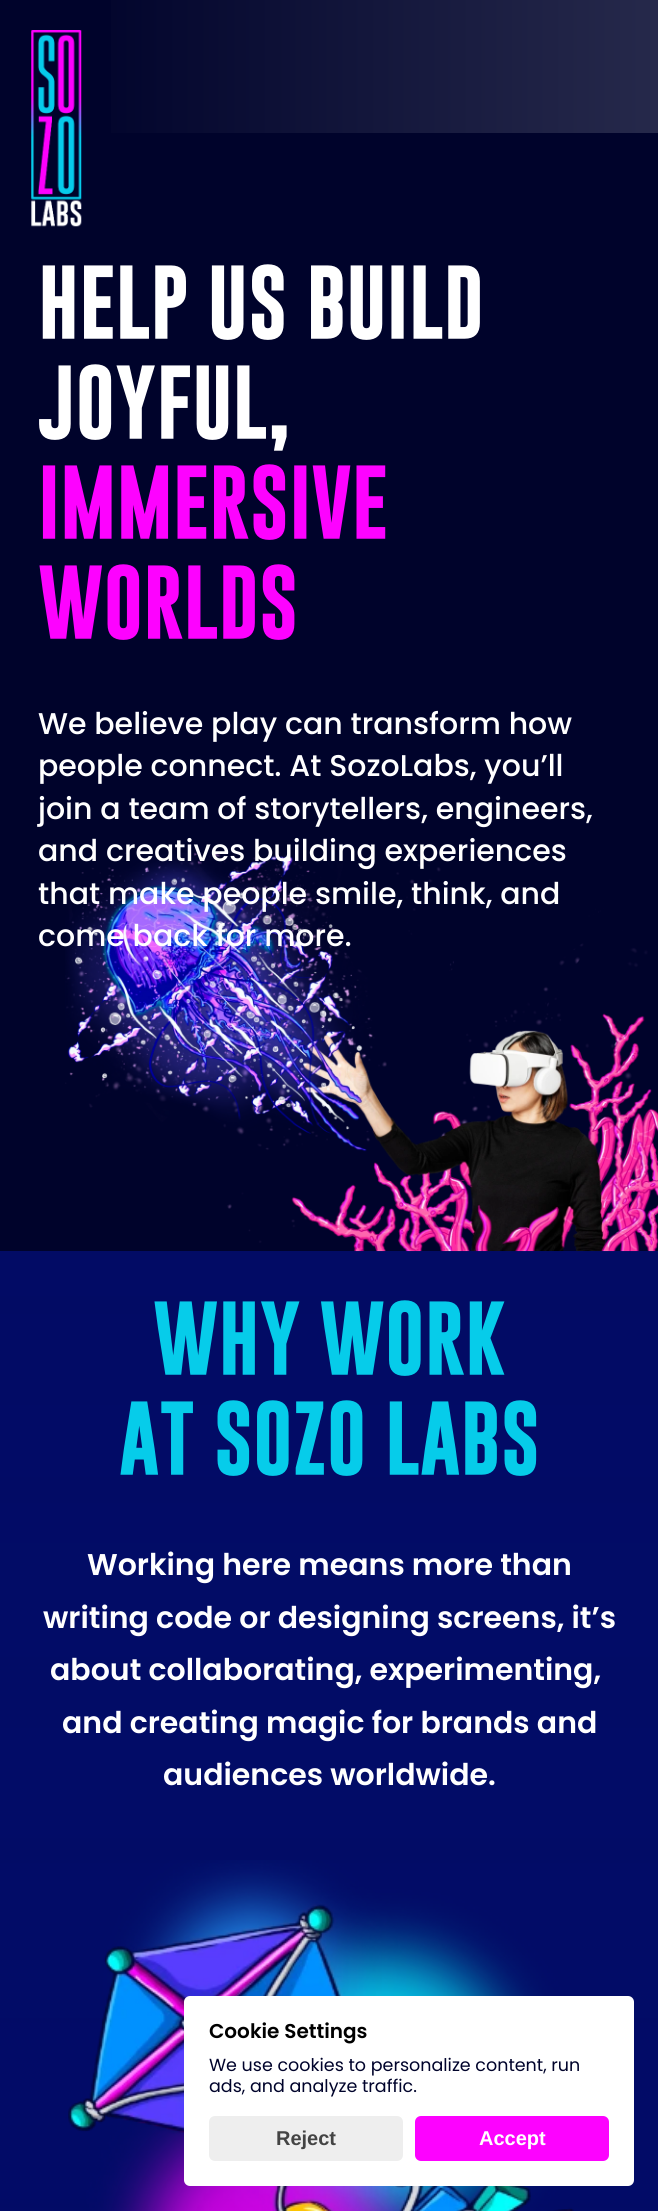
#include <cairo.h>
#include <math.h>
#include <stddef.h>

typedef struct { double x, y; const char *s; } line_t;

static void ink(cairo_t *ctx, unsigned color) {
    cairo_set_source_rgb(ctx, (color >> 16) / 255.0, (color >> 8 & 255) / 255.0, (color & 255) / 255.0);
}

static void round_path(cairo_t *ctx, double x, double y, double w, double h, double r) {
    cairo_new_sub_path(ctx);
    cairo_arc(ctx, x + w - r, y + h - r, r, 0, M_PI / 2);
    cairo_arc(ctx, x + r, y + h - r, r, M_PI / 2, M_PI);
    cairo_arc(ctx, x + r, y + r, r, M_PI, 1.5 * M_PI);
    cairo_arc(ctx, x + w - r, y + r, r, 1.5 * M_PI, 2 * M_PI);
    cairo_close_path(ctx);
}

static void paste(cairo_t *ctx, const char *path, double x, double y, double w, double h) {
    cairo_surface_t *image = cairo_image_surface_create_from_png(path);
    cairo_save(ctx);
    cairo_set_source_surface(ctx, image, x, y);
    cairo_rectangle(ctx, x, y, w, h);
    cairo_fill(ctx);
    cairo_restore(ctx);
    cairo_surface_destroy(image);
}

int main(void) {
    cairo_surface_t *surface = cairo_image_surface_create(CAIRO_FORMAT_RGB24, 658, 2211);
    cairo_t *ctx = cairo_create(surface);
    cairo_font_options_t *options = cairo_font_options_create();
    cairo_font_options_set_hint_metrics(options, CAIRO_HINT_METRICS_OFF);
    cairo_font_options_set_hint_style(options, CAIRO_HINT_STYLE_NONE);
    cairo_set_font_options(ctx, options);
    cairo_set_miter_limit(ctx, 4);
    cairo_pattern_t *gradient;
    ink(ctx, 0x00032B);
    cairo_paint(ctx);
    paste(ctx, "media/1.png", 31, 30, 51, 197);
    gradient = cairo_pattern_create_linear(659, 66, 0, 66);
    cairo_pattern_add_color_stop_rgba(gradient, 0, 0.149, 0.161, 0.294, 1);
    cairo_pattern_add_color_stop_rgba(gradient, 0.89, 0, 0.012, 0.169, 1);
    cairo_set_source(ctx, gradient);
    cairo_pattern_destroy(gradient);
    cairo_rectangle(ctx, 111, 0, 547, 133);
    cairo_fill(ctx);
    cairo_select_font_face(ctx, "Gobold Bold", CAIRO_FONT_SLANT_NORMAL, CAIRO_FONT_WEIGHT_BOLD);
    cairo_set_font_size(ctx, 75);
    ink(ctx, 0xFFFFFF);
    cairo_move_to(ctx, 38, 338);
    cairo_show_text(ctx, "HELP US BUILD");
    cairo_move_to(ctx, 38, 438);
    cairo_show_text(ctx, "JOYFUL,");
    ink(ctx, 0xFD02FF);
    cairo_move_to(ctx, 38, 538);
    cairo_show_text(ctx, "IMMERSIVE");
    cairo_move_to(ctx, 38, 638);
    cairo_show_text(ctx, "WORLDS");
    cairo_select_font_face(ctx, "Poppins Medium", CAIRO_FONT_SLANT_NORMAL, CAIRO_FONT_WEIGHT_NORMAL);
    cairo_set_font_size(ctx, 30);
    ink(ctx, 0xFFFFFF);
    {
        static const line_t items[] = {
            {38, 734, "We believe play can transform how"},
            {38, 776, "people connect. At SozoLabs, you’ll"},
            {38, 819, "join a team of storytellers, engineers,"},
        };
        for (size_t i = 0; i < sizeof items / sizeof *items; i++) {
            cairo_move_to(ctx, items[i].x, items[i].y);
            cairo_show_text(ctx, items[i].s);
        }
    }
    paste(ctx, "media/2.png", 65, 851, 593, 401);
    {
        static const line_t items[] = {
            {38, 861, "and creatives building experiences"},
            {38, 904, "that make people smile, think, and"},
            {38, 946, "come back for more."},
        };
        for (size_t i = 0; i < sizeof items / sizeof *items; i++) {
            cairo_move_to(ctx, items[i].x, items[i].y);
            cairo_show_text(ctx, items[i].s);
        }
    }
    gradient = cairo_pattern_create_linear(329, 1251, 329, 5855);
    cairo_pattern_add_color_stop_rgba(gradient, 0, 0.02, 0.09, 0.733, 0.4);
    cairo_pattern_add_color_stop_rgba(gradient, 1, 0, 0.012, 0.169, 1);
    cairo_set_source(ctx, gradient);
    cairo_pattern_destroy(gradient);
    cairo_rectangle(ctx, 0, 1251, 658, 960);
    cairo_fill(ctx);
    cairo_select_font_face(ctx, "Gobold Bold", CAIRO_FONT_SLANT_NORMAL, CAIRO_FONT_WEIGHT_BOLD);
    cairo_set_font_size(ctx, 75);
    ink(ctx, 0x06CCEA);
    cairo_move_to(ctx, 153, 1374);
    cairo_show_text(ctx, "WHY WORK");
    cairo_move_to(ctx, 119, 1474);
    cairo_show_text(ctx, "AT SOZO LABS");
    cairo_select_font_face(ctx, "Poppins SemiBold", CAIRO_FONT_SLANT_NORMAL, CAIRO_FONT_WEIGHT_NORMAL);
    cairo_set_font_size(ctx, 30);
    ink(ctx, 0xFFFFFF);
    {
        static const line_t items[] = {
            {87, 1575, "Working here means more than"},
            {43, 1628, "writing code or designing screens, it’s"},
            {50, 1680, "about collaborating, experimenting,"},
            {62, 1733, "and creating magic for brands and"},
            {163, 1785, "audiences worldwide."},
        };
        for (size_t i = 0; i < sizeof items / sizeof *items; i++) {
            cairo_move_to(ctx, items[i].x, items[i].y);
            cairo_show_text(ctx, items[i].s);
        }
    }
    paste(ctx, "media/3.png", 68, 1860, 506, 351);
    round_path(ctx, 184, 1996, 450, 190, 6);
    cairo_fill(ctx);
    cairo_set_font_size(ctx, 20);
    ink(ctx, 0x000000);
    cairo_move_to(ctx, 209, 2038);
    cairo_show_text(ctx, "Cookie Settings");
    cairo_select_font_face(ctx, "Poppins", CAIRO_FONT_SLANT_NORMAL, CAIRO_FONT_WEIGHT_NORMAL);
    cairo_set_font_size(ctx, 17.5);
    ink(ctx, 0x00032B);
    cairo_move_to(ctx, 209, 2071);
    cairo_show_text(ctx, "We use cookies to personalize content, run");
    cairo_move_to(ctx, 209, 2092);
    cairo_show_text(ctx, "ads, and analyze traffic.");
    ink(ctx, 0xEEEEEE);
    round_path(ctx, 209, 2116, 194, 45, 6);
    cairo_fill(ctx);
    cairo_select_font_face(ctx, "Liberation Sans", CAIRO_FONT_SLANT_NORMAL, CAIRO_FONT_WEIGHT_BOLD);
    cairo_set_font_size(ctx, 20);
    ink(ctx, 0x444444);
    cairo_move_to(ctx, 276, 2145);
    cairo_show_text(ctx, "Reject");
    ink(ctx, 0xFD02FF);
    round_path(ctx, 415, 2116, 194, 45, 6);
    cairo_fill(ctx);
    ink(ctx, 0xFFFFFF);
    cairo_move_to(ctx, 479, 2145);
    cairo_show_text(ctx, "Accept");
    cairo_surface_write_to_png(surface, "image.png");
    cairo_font_options_destroy(options);
    cairo_destroy(ctx);
    cairo_surface_destroy(surface);
    return 0;
}
